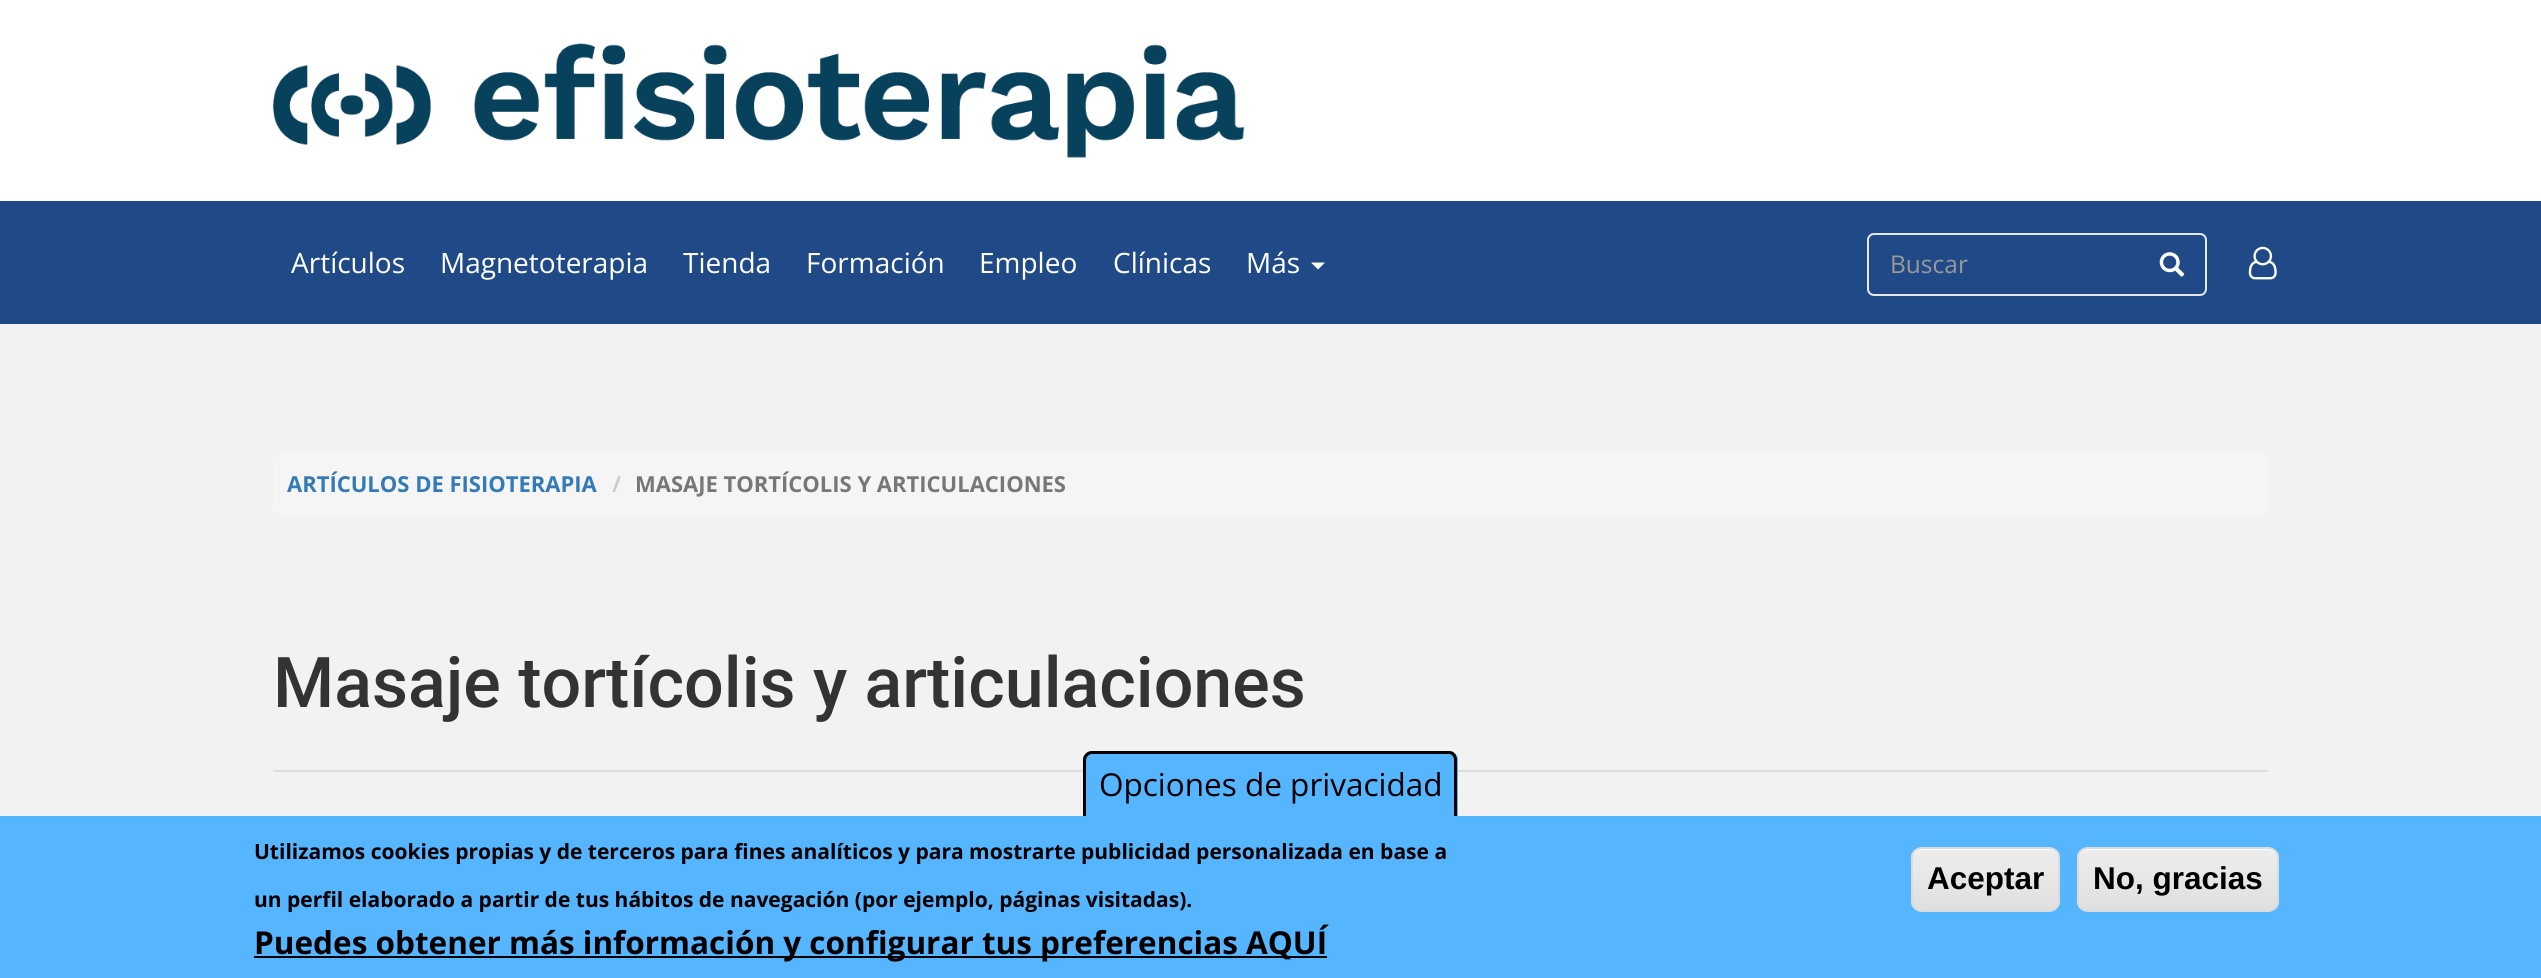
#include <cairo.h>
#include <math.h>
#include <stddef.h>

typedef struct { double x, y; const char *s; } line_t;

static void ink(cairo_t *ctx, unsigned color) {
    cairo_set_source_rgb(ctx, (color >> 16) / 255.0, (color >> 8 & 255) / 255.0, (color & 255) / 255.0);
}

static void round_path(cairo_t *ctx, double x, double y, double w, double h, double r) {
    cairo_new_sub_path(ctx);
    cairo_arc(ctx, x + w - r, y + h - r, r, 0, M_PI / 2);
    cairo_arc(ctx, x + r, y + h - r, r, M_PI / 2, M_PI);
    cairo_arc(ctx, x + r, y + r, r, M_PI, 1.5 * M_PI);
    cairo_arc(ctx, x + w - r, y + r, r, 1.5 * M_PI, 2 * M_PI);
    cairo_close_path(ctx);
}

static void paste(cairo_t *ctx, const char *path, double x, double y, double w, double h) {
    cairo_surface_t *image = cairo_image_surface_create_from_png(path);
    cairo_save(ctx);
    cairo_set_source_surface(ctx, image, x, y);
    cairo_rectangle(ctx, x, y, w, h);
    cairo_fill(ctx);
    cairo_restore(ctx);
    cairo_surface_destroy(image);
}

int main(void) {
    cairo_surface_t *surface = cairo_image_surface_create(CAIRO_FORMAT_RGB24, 2541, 978);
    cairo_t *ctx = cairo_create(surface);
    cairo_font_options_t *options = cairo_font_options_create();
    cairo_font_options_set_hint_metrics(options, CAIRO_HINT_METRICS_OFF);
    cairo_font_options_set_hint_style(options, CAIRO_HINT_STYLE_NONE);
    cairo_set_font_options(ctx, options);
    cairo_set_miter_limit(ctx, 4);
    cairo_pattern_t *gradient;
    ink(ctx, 0xF2F2F2);
    cairo_paint(ctx);
    ink(ctx, 0xFFFFFF);
    cairo_rectangle(ctx, 0, 0, 2541, 201);
    cairo_fill(ctx);
    paste(ctx, "media/1.png", 273, 43, 972, 115);
    ink(ctx, 0x204A87);
    cairo_rectangle(ctx, 0, 201, 2541, 123);
    cairo_fill(ctx);
    cairo_select_font_face(ctx, "Open Sans", CAIRO_FONT_SLANT_NORMAL, CAIRO_FONT_WEIGHT_NORMAL);
    cairo_set_font_size(ctx, 28);
    ink(ctx, 0xFFFFFF);
    {
        static const line_t items[] = {
            {291, 273, "Artículos"},
            {440, 273, "Magnetoterapia"},
            {683, 273, "Tienda"},
            {806, 273, "Formación"},
            {979, 273, "Empleo"},
            {1113, 273, "Clínicas"},
            {1246, 273, "Más"},
        };
        for (size_t i = 0; i < sizeof items / sizeof *items; i++) {
            cairo_move_to(ctx, items[i].x, items[i].y);
            cairo_show_text(ctx, items[i].s);
        }
    }
    cairo_new_path(ctx);
    cairo_move_to(ctx, 1311, 262.5);
    cairo_line_to(ctx, 1325, 262.5);
    cairo_line_to(ctx, 1318, 269.5);
    cairo_close_path(ctx);
    cairo_fill(ctx);
    round_path(ctx, 1868, 234, 338, 61, 6);
    ink(ctx, 0xE7E7E7);
    cairo_stroke(ctx);
    cairo_set_font_size(ctx, 24.5);
    ink(ctx, 0x999999);
    cairo_move_to(ctx, 1890, 273);
    cairo_show_text(ctx, "Buscar");
    paste(ctx, "media/2.png", 2159, 252, 26, 25);
    paste(ctx, "media/3.png", 2248, 246, 29, 34);
    ink(ctx, 0xF5F5F5);
    round_path(ctx, 273, 453, 1995, 62, 7);
    cairo_fill(ctx);
    cairo_select_font_face(ctx, "Open Sans", CAIRO_FONT_SLANT_NORMAL, CAIRO_FONT_WEIGHT_BOLD);
    cairo_set_font_size(ctx, 22);
    ink(ctx, 0x337AB7);
    cairo_move_to(ctx, 287, 492);
    cairo_show_text(ctx, "ARTÍCULOS DE FISIOTERAPIA");
    ink(ctx, 0xCCCCCC);
    cairo_move_to(ctx, 612, 492);
    cairo_show_text(ctx, "/");
    ink(ctx, 0x777777);
    cairo_move_to(ctx, 635, 492);
    cairo_show_text(ctx, "MASAJE TORTÍCOLIS Y ARTICULACIONES");
    cairo_select_font_face(ctx, "Roboto Medium", CAIRO_FONT_SLANT_NORMAL, CAIRO_FONT_WEIGHT_NORMAL);
    cairo_set_font_size(ctx, 70);
    ink(ctx, 0x333333);
    cairo_move_to(ctx, 273, 707);
    cairo_show_text(ctx, "Masaje tortícolis y articulaciones");
    ink(ctx, 0xDDDDDD);
    cairo_rectangle(ctx, 273, 770, 1995, 2);
    cairo_fill(ctx);
    ink(ctx, 0x56B5FF);
    cairo_rectangle(ctx, 0, 816, 2541, 162);
    cairo_fill(ctx);
    cairo_new_path(ctx);
    cairo_move_to(ctx, 1092, 751);
    cairo_line_to(ctx, 1449, 751);
    cairo_curve_to(ctx, 1454, 751, 1458, 755, 1458, 760);
    cairo_line_to(ctx, 1458, 816);
    cairo_line_to(ctx, 1083, 816);
    cairo_line_to(ctx, 1083, 760);
    cairo_curve_to(ctx, 1083, 755, 1087, 751, 1092, 751);
    cairo_close_path(ctx);
    cairo_fill(ctx);
    ink(ctx, 0x000000);
    cairo_set_fill_rule(ctx, CAIRO_FILL_RULE_EVEN_ODD);
    cairo_new_path(ctx);
    cairo_move_to(ctx, 1092, 751);
    cairo_line_to(ctx, 1449, 751);
    cairo_curve_to(ctx, 1454, 751, 1457, 755, 1457, 760);
    cairo_line_to(ctx, 1457, 816);
    cairo_line_to(ctx, 1083, 816);
    cairo_line_to(ctx, 1083, 760);
    cairo_curve_to(ctx, 1083, 755, 1087, 751, 1092, 751);
    cairo_close_path(ctx);
    cairo_move_to(ctx, 1092, 754);
    cairo_line_to(ctx, 1449, 754);
    cairo_curve_to(ctx, 1452, 754, 1454, 757, 1454, 760);
    cairo_line_to(ctx, 1454, 816);
    cairo_line_to(ctx, 1086, 816);
    cairo_line_to(ctx, 1086, 760);
    cairo_curve_to(ctx, 1086, 757, 1089, 754, 1092, 754);
    cairo_close_path(ctx);
    cairo_fill(ctx);
    cairo_select_font_face(ctx, "Open Sans", CAIRO_FONT_SLANT_NORMAL, CAIRO_FONT_WEIGHT_NORMAL);
    cairo_set_font_size(ctx, 31.5);
    cairo_move_to(ctx, 1099, 796);
    cairo_show_text(ctx, "Opciones de privacidad");
    cairo_select_font_face(ctx, "Open Sans", CAIRO_FONT_SLANT_NORMAL, CAIRO_FONT_WEIGHT_BOLD);
    cairo_set_font_size(ctx, 21);
    cairo_move_to(ctx, 254, 859);
    cairo_show_text(ctx, "Utilizamos cookies propias y de terceros para fines analíticos y para mostrarte publicidad personalizada en base a");
    cairo_move_to(ctx, 254, 907);
    cairo_show_text(ctx, "un perfil elaborado a partir de tus hábitos de navegación (por ejemplo, páginas visitadas).");
    cairo_rectangle(ctx, 254, 956, 1073, 2);
    cairo_fill(ctx);
    cairo_set_font_size(ctx, 31.5);
    cairo_move_to(ctx, 254, 954);
    cairo_show_text(ctx, "Puedes obtener más información y configurar tus preferencias AQUÍ");
    cairo_save(ctx);
    cairo_set_fill_rule(ctx, CAIRO_FILL_RULE_WINDING);
    round_path(ctx, 1911, 847, 149, 65, 11);
    cairo_clip(ctx);
    gradient = cairo_pattern_create_linear(1985, 849, 1985, 910);
    cairo_pattern_add_color_stop_rgba(gradient, 0.05, 0.929, 0.929, 0.929, 1);
    cairo_pattern_add_color_stop_rgba(gradient, 1, 0.875, 0.875, 0.875, 1);
    cairo_set_source(ctx, gradient);
    cairo_pattern_destroy(gradient);
    cairo_rectangle(ctx, 1911, 849, 149, 61);
    cairo_fill(ctx);
    cairo_restore(ctx);
    ink(ctx, 0xFFFFFF);
    cairo_set_fill_rule(ctx, CAIRO_FILL_RULE_WINDING);
    cairo_new_path(ctx);
    cairo_move_to(ctx, 1922, 850);
    cairo_line_to(ctx, 2049, 850);
    cairo_curve_to(ctx, 2054, 850, 2058, 854, 2058, 859);
    cairo_curve_to(ctx, 2058, 844, 2036, 849, 2028, 849);
    cairo_line_to(ctx, 1943, 849);
    cairo_curve_to(ctx, 1935, 849, 1913, 844, 1913, 859);
    cairo_curve_to(ctx, 1913, 854, 1917, 850, 1922, 850);
    cairo_close_path(ctx);
    cairo_fill(ctx);
    round_path(ctx, 1912, 848, 147, 63, 10);
    ink(ctx, 0xDCDCDC);
    cairo_stroke(ctx);
    cairo_select_font_face(ctx, "Liberation Sans", CAIRO_FONT_SLANT_NORMAL, CAIRO_FONT_WEIGHT_BOLD);
    ink(ctx, 0x000000);
    cairo_move_to(ctx, 1927, 889);
    cairo_show_text(ctx, "Aceptar");
    cairo_save(ctx);
    round_path(ctx, 2077, 847, 202, 65, 11);
    cairo_clip(ctx);
    gradient = cairo_pattern_create_linear(2178, 849, 2178, 910);
    cairo_pattern_add_color_stop_rgba(gradient, 0.05, 0.929, 0.929, 0.929, 1);
    cairo_pattern_add_color_stop_rgba(gradient, 1, 0.875, 0.875, 0.875, 1);
    cairo_set_source(ctx, gradient);
    cairo_pattern_destroy(gradient);
    cairo_rectangle(ctx, 2077, 849, 202, 61);
    cairo_fill(ctx);
    cairo_restore(ctx);
    ink(ctx, 0xFFFFFF);
    cairo_new_path(ctx);
    cairo_move_to(ctx, 2088, 850);
    cairo_line_to(ctx, 2268, 850);
    cairo_curve_to(ctx, 2273, 850, 2277, 854, 2277, 859);
    cairo_line_to(ctx, 2277, 858);
    cairo_curve_to(ctx, 2277, 853, 2273, 849, 2268, 849);
    cairo_line_to(ctx, 2088, 849);
    cairo_curve_to(ctx, 2083, 849, 2079, 853, 2079, 858);
    cairo_line_to(ctx, 2079, 859);
    cairo_curve_to(ctx, 2079, 854, 2083, 850, 2088, 850);
    cairo_close_path(ctx);
    cairo_fill(ctx);
    round_path(ctx, 2078, 848, 200, 63, 10);
    ink(ctx, 0xDCDCDC);
    cairo_stroke(ctx);
    ink(ctx, 0x000000);
    cairo_move_to(ctx, 2093, 889);
    cairo_show_text(ctx, "No, gracias");
    cairo_surface_write_to_png(surface, "image.png");
    cairo_font_options_destroy(options);
    cairo_destroy(ctx);
    cairo_surface_destroy(surface);
    return 0;
}
